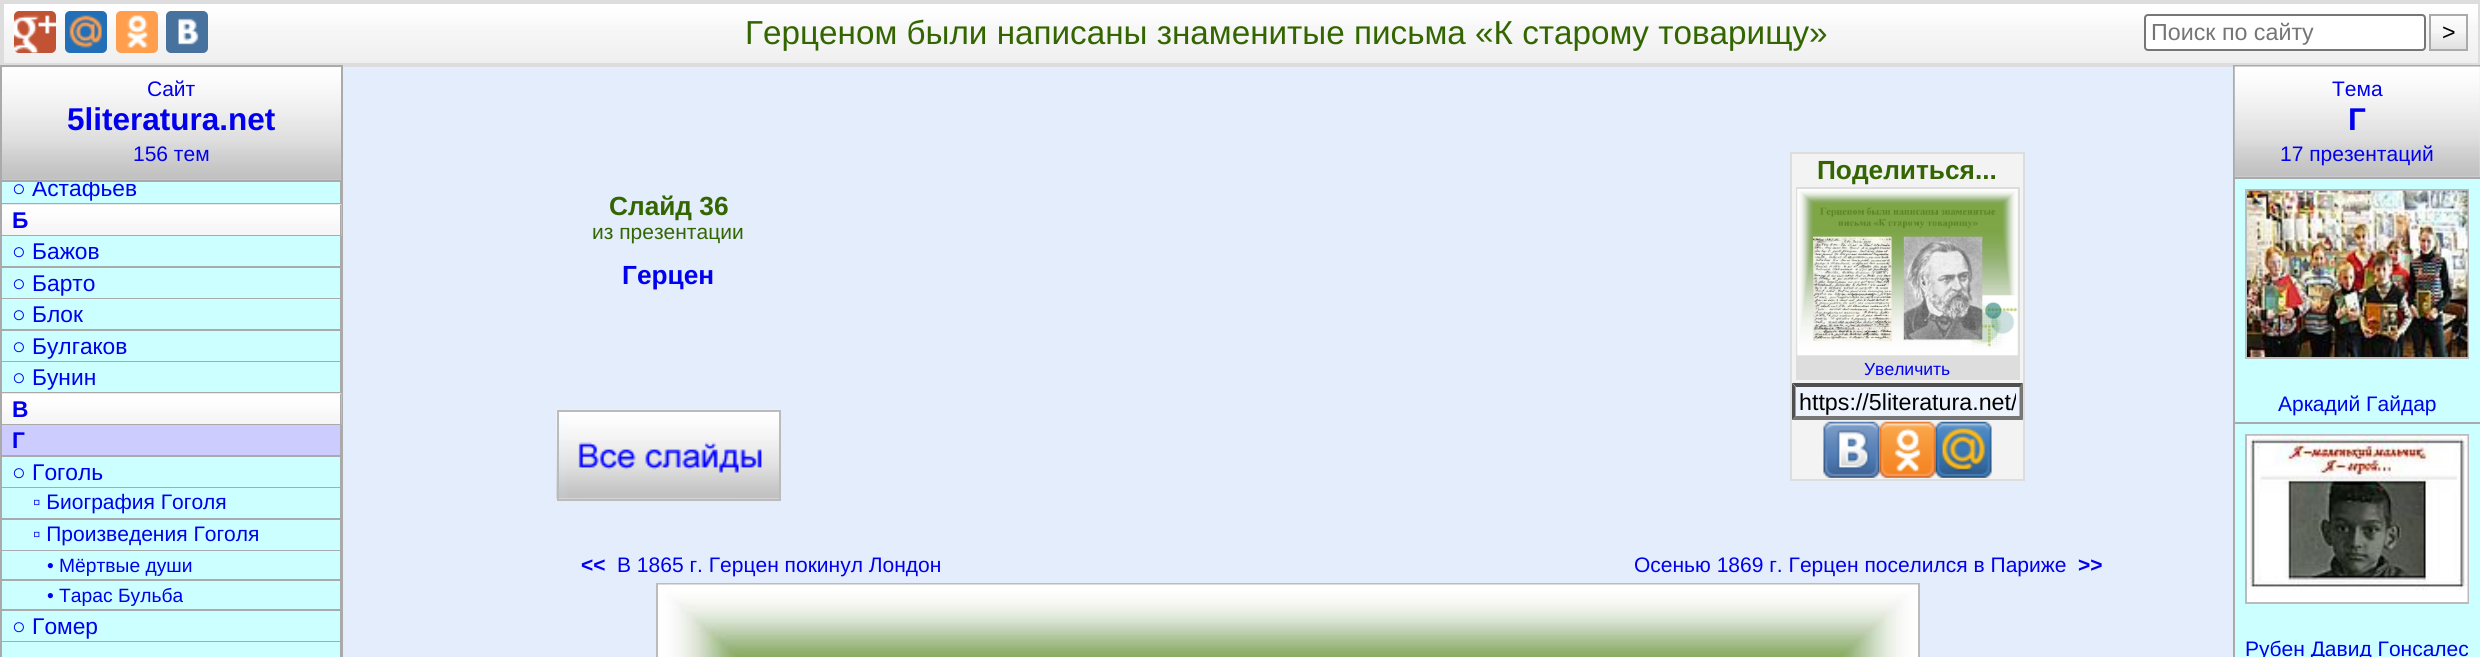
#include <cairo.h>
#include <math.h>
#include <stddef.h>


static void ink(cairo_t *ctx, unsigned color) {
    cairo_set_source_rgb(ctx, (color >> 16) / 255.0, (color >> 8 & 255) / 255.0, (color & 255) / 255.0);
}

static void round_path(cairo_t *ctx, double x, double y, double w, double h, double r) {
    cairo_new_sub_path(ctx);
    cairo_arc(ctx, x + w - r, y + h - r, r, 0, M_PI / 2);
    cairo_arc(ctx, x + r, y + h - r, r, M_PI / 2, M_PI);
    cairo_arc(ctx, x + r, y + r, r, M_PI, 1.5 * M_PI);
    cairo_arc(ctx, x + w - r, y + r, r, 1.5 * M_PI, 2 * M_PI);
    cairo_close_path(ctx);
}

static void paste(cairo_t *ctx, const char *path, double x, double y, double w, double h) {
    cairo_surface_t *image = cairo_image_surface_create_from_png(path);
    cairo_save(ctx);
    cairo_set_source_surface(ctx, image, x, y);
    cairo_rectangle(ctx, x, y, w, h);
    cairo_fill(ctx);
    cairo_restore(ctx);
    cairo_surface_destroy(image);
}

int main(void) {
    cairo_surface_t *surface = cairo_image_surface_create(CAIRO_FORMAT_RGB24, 2480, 657);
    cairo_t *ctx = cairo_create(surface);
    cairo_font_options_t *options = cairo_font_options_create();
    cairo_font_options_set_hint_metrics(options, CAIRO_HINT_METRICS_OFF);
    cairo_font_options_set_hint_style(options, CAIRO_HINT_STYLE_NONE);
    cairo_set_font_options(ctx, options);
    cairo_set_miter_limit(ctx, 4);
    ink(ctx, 0xE3EDFB);
    cairo_paint(ctx);
    paste(ctx, "media/1.png", 4, 4, 2474, 59);
    cairo_rectangle(ctx, 2, 2, 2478, 63);
    ink(ctx, 0xDDDDDD);
    cairo_set_line_width(ctx, 4);
    cairo_stroke(ctx);
    ink(ctx, 0xC25234);
    round_path(ctx, 14, 11, 42, 42, 5);
    cairo_fill(ctx);
    paste(ctx, "media/2.png", 14, 15, 42, 38);
    ink(ctx, 0x226EB7);
    round_path(ctx, 65, 11, 42, 42, 5);
    cairo_fill(ctx);
    paste(ctx, "media/3.png", 69, 15, 33, 33);
    ink(ctx, 0xFF9F4D);
    round_path(ctx, 116, 11, 42, 42, 5);
    cairo_fill(ctx);
    paste(ctx, "media/4.png", 127, 15, 21, 33);
    ink(ctx, 0x48729E);
    round_path(ctx, 166, 11, 42, 42, 5);
    cairo_fill(ctx);
    paste(ctx, "media/5.png", 178, 18, 21, 27);
    cairo_select_font_face(ctx, "Liberation Sans", CAIRO_FONT_SLANT_NORMAL, CAIRO_FONT_WEIGHT_NORMAL);
    cairo_set_font_size(ctx, 33.25);
    ink(ctx, 0x336600);
    cairo_move_to(ctx, 745, 44);
    cairo_show_text(ctx, "Герценом были написаны знаменитые письма «К старому товарищу»");
    ink(ctx, 0xFFFFFF);
    round_path(ctx, 2145, 15, 280, 35, 3);
    cairo_fill_preserve(ctx);
    ink(ctx, 0x767676);
    cairo_set_line_width(ctx, 2);
    cairo_stroke(ctx);
    cairo_set_font_size(ctx, 23.25);
    ink(ctx, 0x757575);
    cairo_move_to(ctx, 2151, 40);
    cairo_show_text(ctx, "Поиск по сайту");
    paste(ctx, "media/6.png", 2431, 33, 35, 16);
    cairo_rectangle(ctx, 2430, 15, 37, 35);
    ink(ctx, 0xAAAAAA);
    cairo_stroke(ctx);
    ink(ctx, 0x000000);
    cairo_move_to(ctx, 2442, 40);
    cairo_show_text(ctx, ">");
    paste(ctx, "media/7.png", 2, 67, 339, 113);
    cairo_rectangle(ctx, 1, 66, 341, 115);
    ink(ctx, 0xAAAAAA);
    cairo_stroke(ctx);
    cairo_set_font_size(ctx, 21);
    ink(ctx, 0x0000EE);
    cairo_move_to(ctx, 147, 96);
    cairo_show_text(ctx, "Сайт");
    cairo_select_font_face(ctx, "Liberation Sans", CAIRO_FONT_SLANT_NORMAL, CAIRO_FONT_WEIGHT_BOLD);
    cairo_set_font_size(ctx, 31.5);
    cairo_move_to(ctx, 67, 130);
    cairo_show_text(ctx, "5literatura.net");
    cairo_select_font_face(ctx, "Liberation Sans", CAIRO_FONT_SLANT_NORMAL, CAIRO_FONT_WEIGHT_NORMAL);
    cairo_set_font_size(ctx, 21);
    cairo_move_to(ctx, 133, 161);
    cairo_show_text(ctx, "156 тем");
    cairo_select_font_face(ctx, "Liberation Sans", CAIRO_FONT_SLANT_NORMAL, CAIRO_FONT_WEIGHT_BOLD);
    cairo_set_font_size(ctx, 26.25);
    ink(ctx, 0x336600);
    cairo_move_to(ctx, 609, 215);
    cairo_show_text(ctx, "Cлайд 36");
    cairo_select_font_face(ctx, "Liberation Sans", CAIRO_FONT_SLANT_NORMAL, CAIRO_FONT_WEIGHT_NORMAL);
    cairo_set_font_size(ctx, 21);
    cairo_move_to(ctx, 592, 239);
    cairo_show_text(ctx, "из презентации");
    cairo_select_font_face(ctx, "Liberation Sans", CAIRO_FONT_SLANT_NORMAL, CAIRO_FONT_WEIGHT_BOLD);
    cairo_set_font_size(ctx, 26.25);
    ink(ctx, 0x0000EE);
    cairo_move_to(ctx, 622, 284);
    cairo_show_text(ctx, "Герцен");
    paste(ctx, "media/8.png", 556, 409, 225, 92);
    cairo_rectangle(ctx, 558, 411, 222, 89);
    ink(ctx, 0xBBBBBB);
    cairo_stroke(ctx);
    ink(ctx, 0xF3F3F3);
    cairo_rectangle(ctx, 1791, 153, 233, 327);
    cairo_fill_preserve(ctx);
    ink(ctx, 0xDDDDDD);
    cairo_stroke(ctx);
    ink(ctx, 0x336600);
    cairo_move_to(ctx, 1817, 179);
    cairo_show_text(ctx, "Поделиться...");
    ink(ctx, 0xDDDDDD);
    cairo_rectangle(ctx, 1796, 187, 224, 193);
    cairo_fill(ctx);
    paste(ctx, "media/9.png", 1797, 189, 221, 167);
    cairo_select_font_face(ctx, "Liberation Sans", CAIRO_FONT_SLANT_NORMAL, CAIRO_FONT_WEIGHT_NORMAL);
    cairo_set_font_size(ctx, 17.5);
    ink(ctx, 0x0000EE);
    cairo_move_to(ctx, 1864, 375);
    cairo_show_text(ctx, "Увеличить");
    ink(ctx, 0xEEF4FD);
    cairo_rectangle(ctx, 1792, 383, 231, 37);
    cairo_fill(ctx);
    ink(ctx, 0x4F4F4F);
    cairo_new_path(ctx);
    cairo_move_to(ctx, 1792, 383);
    cairo_line_to(ctx, 2023, 383);
    cairo_line_to(ctx, 2020, 387);
    cairo_line_to(ctx, 1796, 387);
    cairo_close_path(ctx);
    cairo_fill(ctx);
    ink(ctx, 0x767676);
    cairo_new_path(ctx);
    cairo_move_to(ctx, 2023, 383);
    cairo_line_to(ctx, 2023, 420);
    cairo_line_to(ctx, 2019.5, 416.5);
    cairo_line_to(ctx, 2019.5, 387);
    cairo_close_path(ctx);
    cairo_fill(ctx);
    cairo_new_path(ctx);
    cairo_move_to(ctx, 2023, 420);
    cairo_line_to(ctx, 1792, 420);
    cairo_line_to(ctx, 1796, 416);
    cairo_line_to(ctx, 2020, 416);
    cairo_close_path(ctx);
    cairo_fill(ctx);
    ink(ctx, 0x4F4F4F);
    cairo_new_path(ctx);
    cairo_move_to(ctx, 1792, 420);
    cairo_line_to(ctx, 1792, 383);
    cairo_line_to(ctx, 1795.5, 387);
    cairo_line_to(ctx, 1795.5, 416.5);
    cairo_close_path(ctx);
    cairo_fill(ctx);
    cairo_save(ctx);
    cairo_rectangle(ctx, 1799, 389, 217, 26);
    cairo_clip(ctx);
    cairo_set_font_size(ctx, 23.25);
    ink(ctx, 0x000000);
    cairo_move_to(ctx, 1799, 410);
    cairo_show_text(ctx, "https://5literatura.net/");
    cairo_restore(ctx);
    paste(ctx, "media/10.png", 1823, 421, 57, 57);
    paste(ctx, "media/11.png", 1879, 421, 57, 57);
    paste(ctx, "media/12.png", 1935, 421, 57, 57);
    cairo_select_font_face(ctx, "Liberation Sans", CAIRO_FONT_SLANT_NORMAL, CAIRO_FONT_WEIGHT_BOLD);
    cairo_set_font_size(ctx, 21);
    ink(ctx, 0x0000EE);
    cairo_move_to(ctx, 581, 572);
    cairo_show_text(ctx, "<<");
    cairo_select_font_face(ctx, "Liberation Sans", CAIRO_FONT_SLANT_NORMAL, CAIRO_FONT_WEIGHT_NORMAL);
    cairo_move_to(ctx, 617, 572);
    cairo_show_text(ctx, "В 1865 г. Герцен покинул Лондон");
    cairo_move_to(ctx, 1634, 572);
    cairo_show_text(ctx, "Осенью 1869 г. Герцен поселился в Париже");
    cairo_select_font_face(ctx, "Liberation Sans", CAIRO_FONT_SLANT_NORMAL, CAIRO_FONT_WEIGHT_BOLD);
    cairo_move_to(ctx, 2078, 572);
    cairo_show_text(ctx, ">>");
    cairo_rectangle(ctx, 657, 584, 1262, 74);
    ink(ctx, 0xBBBBBB);
    cairo_stroke(ctx);
    paste(ctx, "media/13.png", 658, 584, 1260, 73);
    cairo_rectangle(ctx, 2234, 66, 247, 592);
    ink(ctx, 0xAAAAAA);
    cairo_stroke(ctx);
    paste(ctx, "media/14.png", 2234, 66, 246, 111);
    cairo_select_font_face(ctx, "Liberation Sans", CAIRO_FONT_SLANT_NORMAL, CAIRO_FONT_WEIGHT_NORMAL);
    ink(ctx, 0x0000EE);
    cairo_move_to(ctx, 2332, 96);
    cairo_show_text(ctx, "Тема");
    cairo_select_font_face(ctx, "Liberation Sans", CAIRO_FONT_SLANT_NORMAL, CAIRO_FONT_WEIGHT_BOLD);
    cairo_set_font_size(ctx, 31.5);
    cairo_move_to(ctx, 2348, 130);
    cairo_show_text(ctx, "Г");
    cairo_select_font_face(ctx, "Liberation Sans", CAIRO_FONT_SLANT_NORMAL, CAIRO_FONT_WEIGHT_NORMAL);
    cairo_set_font_size(ctx, 21);
    cairo_move_to(ctx, 2280, 161);
    cairo_show_text(ctx, "17 презентаций");
    ink(ctx, 0xCCFFFF);
    cairo_rectangle(ctx, 2235, 179, 245, 243);
    cairo_fill(ctx);
    ink(ctx, 0xAAAAAA);
    cairo_rectangle(ctx, 2235, 177, 245, 2);
    cairo_fill(ctx);
    cairo_rectangle(ctx, 2246, 190, 222, 168);
    ink(ctx, 0xBBBBBB);
    cairo_stroke(ctx);
    paste(ctx, "media/15.png", 2247, 190, 221, 167);
    ink(ctx, 0x0000EE);
    cairo_move_to(ctx, 2278, 411);
    cairo_show_text(ctx, "Аркадий Гайдар");
    ink(ctx, 0xCCFFFF);
    cairo_rectangle(ctx, 2235, 424, 245, 233);
    cairo_fill(ctx);
    ink(ctx, 0xAAAAAA);
    cairo_rectangle(ctx, 2235, 422, 245, 2);
    cairo_fill(ctx);
    cairo_rectangle(ctx, 2246, 435, 222, 168);
    ink(ctx, 0xBBBBBB);
    cairo_stroke(ctx);
    paste(ctx, "media/16.png", 2247, 435, 221, 167);
    ink(ctx, 0x0000EE);
    cairo_move_to(ctx, 2245, 656);
    cairo_show_text(ctx, "Рубен Давид Гонсалес");
    ink(ctx, 0xCCFFFF);
    cairo_rectangle(ctx, 2, 182, 338, 459);
    cairo_fill(ctx);
    cairo_rectangle(ctx, 1, 181, 341, 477);
    ink(ctx, 0xAAAAAA);
    cairo_stroke(ctx);
    cairo_rectangle(ctx, 340, 182, 1, 23);
    cairo_fill(ctx);
    cairo_rectangle(ctx, 2, 203, 339, 2);
    cairo_fill(ctx);
    cairo_save(ctx);
    cairo_rectangle(ctx, 2, 182, 339, 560);
    cairo_clip(ctx);
    cairo_set_font_size(ctx, 22.75);
    ink(ctx, 0x0000EE);
    cairo_move_to(ctx, 12, 196);
    cairo_show_text(ctx, "○ Астафьев");
    cairo_restore(ctx);
    paste(ctx, "media/17.png", 2, 204, 340, 32);
    cairo_rectangle(ctx, 340, 205, 1, 189);
    cairo_fill(ctx);
    cairo_rectangle(ctx, 2, 235, 339, 1);
    cairo_fill(ctx);
    cairo_select_font_face(ctx, "Liberation Sans", CAIRO_FONT_SLANT_NORMAL, CAIRO_FONT_WEIGHT_BOLD);
    cairo_set_font_size(ctx, 22.75);
    ink(ctx, 0x0000EE);
    cairo_move_to(ctx, 12, 228);
    cairo_show_text(ctx, "Б");
    ink(ctx, 0xAAAAAA);
    cairo_rectangle(ctx, 2, 266, 339, 2);
    cairo_fill(ctx);
    cairo_select_font_face(ctx, "Liberation Sans", CAIRO_FONT_SLANT_NORMAL, CAIRO_FONT_WEIGHT_NORMAL);
    ink(ctx, 0x0000EE);
    cairo_move_to(ctx, 12, 259);
    cairo_show_text(ctx, "○ Бажов");
    ink(ctx, 0xAAAAAA);
    cairo_rectangle(ctx, 2, 298, 339, 1);
    cairo_fill(ctx);
    ink(ctx, 0x0000EE);
    cairo_move_to(ctx, 12, 291);
    cairo_show_text(ctx, "○ Барто");
    ink(ctx, 0xAAAAAA);
    cairo_rectangle(ctx, 2, 329, 339, 2);
    cairo_fill(ctx);
    ink(ctx, 0x0000EE);
    cairo_move_to(ctx, 12, 322);
    cairo_show_text(ctx, "○ Блок");
    ink(ctx, 0xAAAAAA);
    cairo_rectangle(ctx, 2, 361, 339, 1);
    cairo_fill(ctx);
    ink(ctx, 0x0000EE);
    cairo_move_to(ctx, 12, 354);
    cairo_show_text(ctx, "○ Булгаков");
    ink(ctx, 0xAAAAAA);
    cairo_rectangle(ctx, 2, 392, 339, 2);
    cairo_fill(ctx);
    ink(ctx, 0x0000EE);
    cairo_move_to(ctx, 12, 385);
    cairo_show_text(ctx, "○ Бунин");
    paste(ctx, "media/17.png", 2, 393, 340, 32);
    ink(ctx, 0xAAAAAA);
    cairo_rectangle(ctx, 340, 394, 1, 263);
    cairo_fill(ctx);
    cairo_rectangle(ctx, 2, 424, 339, 1);
    cairo_fill(ctx);
    cairo_select_font_face(ctx, "Liberation Sans", CAIRO_FONT_SLANT_NORMAL, CAIRO_FONT_WEIGHT_BOLD);
    ink(ctx, 0x0000EE);
    cairo_move_to(ctx, 12, 417);
    cairo_show_text(ctx, "В");
    ink(ctx, 0xCCCCFF);
    cairo_rectangle(ctx, 2, 425, 338, 30);
    cairo_fill(ctx);
    ink(ctx, 0xAAAAAA);
    cairo_rectangle(ctx, 2, 455, 339, 2);
    cairo_fill(ctx);
    ink(ctx, 0x0000EE);
    cairo_move_to(ctx, 12, 448);
    cairo_show_text(ctx, "Г");
    ink(ctx, 0xAAAAAA);
    cairo_rectangle(ctx, 2, 487, 339, 1);
    cairo_fill(ctx);
    cairo_select_font_face(ctx, "Liberation Sans", CAIRO_FONT_SLANT_NORMAL, CAIRO_FONT_WEIGHT_NORMAL);
    ink(ctx, 0x0000EE);
    cairo_move_to(ctx, 12, 480);
    cairo_show_text(ctx, "○ Гоголь");
    ink(ctx, 0xAAAAAA);
    cairo_rectangle(ctx, 2, 518, 339, 2);
    cairo_fill(ctx);
    cairo_set_font_size(ctx, 21);
    ink(ctx, 0x0000EE);
    cairo_move_to(ctx, 33, 509);
    cairo_show_text(ctx, "▫ Биография Гоголя");
    ink(ctx, 0xAAAAAA);
    cairo_rectangle(ctx, 2, 550, 339, 1);
    cairo_fill(ctx);
    ink(ctx, 0x0000EE);
    cairo_move_to(ctx, 33, 541);
    cairo_show_text(ctx, "▫ Произведения Гоголя");
    ink(ctx, 0xAAAAAA);
    cairo_rectangle(ctx, 2, 579, 339, 2);
    cairo_fill(ctx);
    cairo_set_font_size(ctx, 19.25);
    ink(ctx, 0x0000EE);
    cairo_move_to(ctx, 47, 572);
    cairo_show_text(ctx, "• Мёртвые души");
    ink(ctx, 0xAAAAAA);
    cairo_rectangle(ctx, 2, 609, 339, 2);
    cairo_fill(ctx);
    ink(ctx, 0x0000EE);
    cairo_move_to(ctx, 47, 602);
    cairo_show_text(ctx, "• Тарас Бульба");
    ink(ctx, 0xAAAAAA);
    cairo_rectangle(ctx, 2, 641, 339, 1);
    cairo_fill(ctx);
    cairo_set_font_size(ctx, 22.75);
    ink(ctx, 0x0000EE);
    cairo_move_to(ctx, 12, 634);
    cairo_show_text(ctx, "○ Гомер");
    ink(ctx, 0xCCFFFF);
    cairo_rectangle(ctx, 2, 642, 338, 15);
    cairo_fill(ctx);
    cairo_surface_write_to_png(surface, "image.png");
    cairo_font_options_destroy(options);
    cairo_destroy(ctx);
    cairo_surface_destroy(surface);
    return 0;
}
